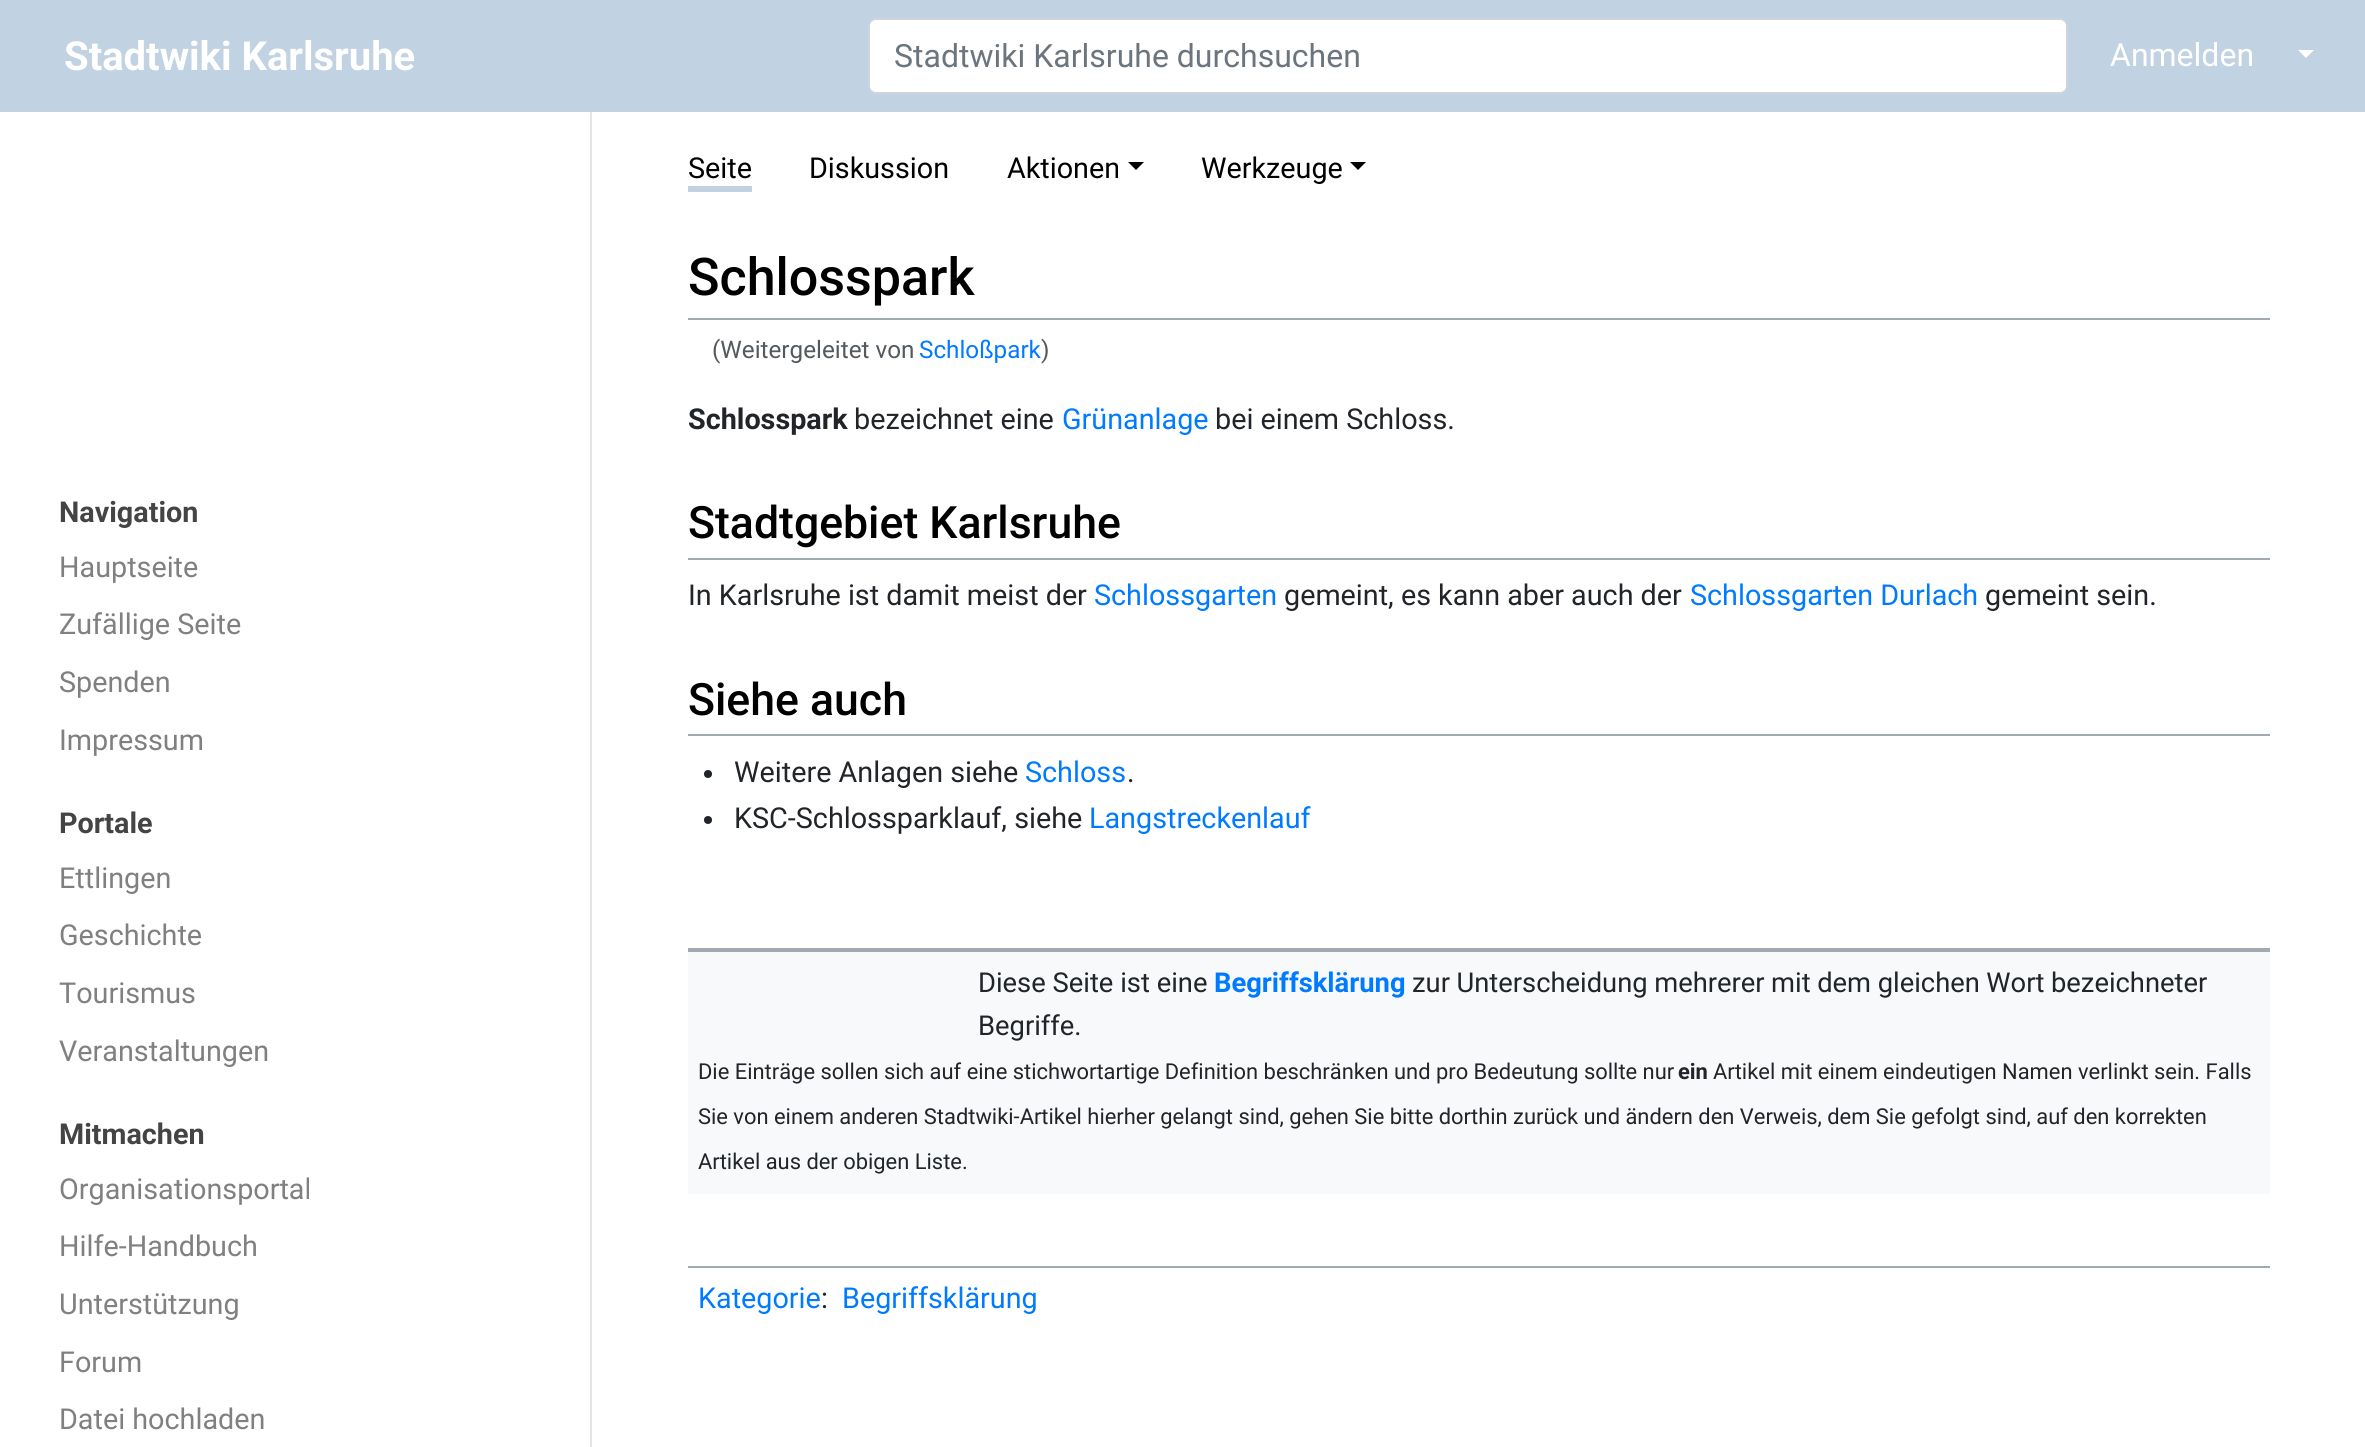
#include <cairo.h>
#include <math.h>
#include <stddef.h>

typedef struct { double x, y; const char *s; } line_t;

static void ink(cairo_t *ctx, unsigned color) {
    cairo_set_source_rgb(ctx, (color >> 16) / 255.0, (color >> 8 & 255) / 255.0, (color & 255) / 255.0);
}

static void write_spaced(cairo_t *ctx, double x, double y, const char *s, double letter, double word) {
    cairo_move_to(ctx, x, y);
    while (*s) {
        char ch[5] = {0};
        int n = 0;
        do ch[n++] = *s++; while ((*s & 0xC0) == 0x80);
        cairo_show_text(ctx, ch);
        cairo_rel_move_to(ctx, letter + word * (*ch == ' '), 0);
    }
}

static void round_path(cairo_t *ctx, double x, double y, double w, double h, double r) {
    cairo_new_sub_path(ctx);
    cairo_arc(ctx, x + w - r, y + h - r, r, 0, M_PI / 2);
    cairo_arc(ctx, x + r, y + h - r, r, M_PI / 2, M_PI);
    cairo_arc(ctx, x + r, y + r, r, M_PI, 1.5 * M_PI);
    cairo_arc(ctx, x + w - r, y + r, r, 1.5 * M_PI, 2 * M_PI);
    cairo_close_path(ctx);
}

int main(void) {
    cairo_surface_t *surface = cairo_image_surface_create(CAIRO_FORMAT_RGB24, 2365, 1447);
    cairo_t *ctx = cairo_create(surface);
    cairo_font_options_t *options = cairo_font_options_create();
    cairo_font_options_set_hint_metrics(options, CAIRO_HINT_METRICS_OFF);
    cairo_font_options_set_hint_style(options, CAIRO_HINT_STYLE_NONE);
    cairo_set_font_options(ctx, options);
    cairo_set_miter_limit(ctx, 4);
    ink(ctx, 0xFFFFFF);
    cairo_paint(ctx);
    ink(ctx, 0xC1D2E2);
    cairo_rectangle(ctx, 0, 0, 2365, 112);
    cairo_fill(ctx);
    cairo_select_font_face(ctx, "Roboto", CAIRO_FONT_SLANT_NORMAL, CAIRO_FONT_WEIGHT_BOLD);
    cairo_set_font_size(ctx, 40);
    ink(ctx, 0xFFFFFF);
    cairo_move_to(ctx, 64, 70);
    cairo_show_text(ctx, "Stadtwiki Karlsruhe");
    round_path(ctx, 869, 19, 1198, 74, 7);
    cairo_fill_preserve(ctx);
    ink(ctx, 0xCED4DA);
    cairo_stroke(ctx);
    cairo_select_font_face(ctx, "Roboto", CAIRO_FONT_SLANT_NORMAL, CAIRO_FONT_WEIGHT_NORMAL);
    cairo_set_font_size(ctx, 32);
    ink(ctx, 0x6C757D);
    cairo_move_to(ctx, 894, 67);
    cairo_show_text(ctx, "Stadtwiki Karlsruhe durchsuchen");
    ink(ctx, 0xFFFFFF);
    cairo_move_to(ctx, 2110, 66);
    cairo_show_text(ctx, "Anmelden");
    cairo_new_path(ctx);
    cairo_move_to(ctx, 2298, 50);
    cairo_line_to(ctx, 2314, 50);
    cairo_line_to(ctx, 2306, 58);
    cairo_close_path(ctx);
    cairo_fill(ctx);
    ink(ctx, 0xE5E5E5);
    cairo_rectangle(ctx, 590, 112, 2, 1335);
    cairo_fill(ctx);
    cairo_select_font_face(ctx, "Roboto", CAIRO_FONT_SLANT_NORMAL, CAIRO_FONT_WEIGHT_BOLD);
    cairo_set_font_size(ctx, 28.75);
    ink(ctx, 0x444444);
    cairo_move_to(ctx, 59, 522);
    cairo_show_text(ctx, "Navigation");
    cairo_select_font_face(ctx, "Roboto", CAIRO_FONT_SLANT_NORMAL, CAIRO_FONT_WEIGHT_NORMAL);
    ink(ctx, 0x808080);
    {
        static const line_t items[] = {
            {59, 577, "Hauptseite"},
            {59, 634, "Zufällige Seite"},
            {59, 692, "Spenden"},
            {59, 750, "Impressum"},
        };
        for (size_t i = 0; i < sizeof items / sizeof *items; i++) {
            cairo_move_to(ctx, items[i].x, items[i].y);
            cairo_show_text(ctx, items[i].s);
        }
    }
    cairo_select_font_face(ctx, "Roboto", CAIRO_FONT_SLANT_NORMAL, CAIRO_FONT_WEIGHT_BOLD);
    ink(ctx, 0x444444);
    cairo_move_to(ctx, 59, 833);
    cairo_show_text(ctx, "Portale");
    cairo_select_font_face(ctx, "Roboto", CAIRO_FONT_SLANT_NORMAL, CAIRO_FONT_WEIGHT_NORMAL);
    ink(ctx, 0x808080);
    {
        static const line_t items[] = {
            {59, 888, "Ettlingen"},
            {59, 945, "Geschichte"},
            {59, 1003, "Tourismus"},
            {59, 1061, "Veranstaltungen"},
        };
        for (size_t i = 0; i < sizeof items / sizeof *items; i++) {
            cairo_move_to(ctx, items[i].x, items[i].y);
            cairo_show_text(ctx, items[i].s);
        }
    }
    cairo_select_font_face(ctx, "Roboto", CAIRO_FONT_SLANT_NORMAL, CAIRO_FONT_WEIGHT_BOLD);
    ink(ctx, 0x444444);
    cairo_move_to(ctx, 59, 1144);
    cairo_show_text(ctx, "Mitmachen");
    cairo_select_font_face(ctx, "Roboto", CAIRO_FONT_SLANT_NORMAL, CAIRO_FONT_WEIGHT_NORMAL);
    ink(ctx, 0x808080);
    {
        static const line_t items[] = {
            {59, 1199, "Organisationsportal"},
            {59, 1256, "Hilfe-Handbuch"},
            {59, 1314, "Unterstützung"},
            {59, 1372, "Forum"},
            {59, 1429, "Datei hochladen"},
        };
        for (size_t i = 0; i < sizeof items / sizeof *items; i++) {
            cairo_move_to(ctx, items[i].x, items[i].y);
            cairo_show_text(ctx, items[i].s);
        }
    }
    ink(ctx, 0x000000);
    cairo_move_to(ctx, 688, 178);
    cairo_show_text(ctx, "Seite");
    ink(ctx, 0xC1D2E2);
    cairo_rectangle(ctx, 688, 186, 64, 6);
    cairo_fill(ctx);
    ink(ctx, 0x000000);
    cairo_move_to(ctx, 809, 178);
    cairo_show_text(ctx, "Diskussion");
    cairo_move_to(ctx, 1007, 178);
    cairo_show_text(ctx, "Aktionen");
    cairo_new_path(ctx);
    cairo_move_to(ctx, 1128, 162);
    cairo_line_to(ctx, 1144, 162);
    cairo_line_to(ctx, 1136, 170);
    cairo_close_path(ctx);
    cairo_fill(ctx);
    cairo_move_to(ctx, 1201, 178);
    cairo_show_text(ctx, "Werkzeuge");
    cairo_new_path(ctx);
    cairo_move_to(ctx, 1350, 162);
    cairo_line_to(ctx, 1366, 162);
    cairo_line_to(ctx, 1358, 170);
    cairo_close_path(ctx);
    cairo_fill(ctx);
    ink(ctx, 0xA2A9B1);
    cairo_rectangle(ctx, 688, 318, 1582, 2);
    cairo_fill(ctx);
    cairo_select_font_face(ctx, "Roboto Medium", CAIRO_FONT_SLANT_NORMAL, CAIRO_FONT_WEIGHT_NORMAL);
    cairo_set_font_size(ctx, 52);
    ink(ctx, 0x000000);
    cairo_move_to(ctx, 688, 295);
    cairo_show_text(ctx, "Schlosspark");
    cairo_select_font_face(ctx, "Roboto", CAIRO_FONT_SLANT_NORMAL, CAIRO_FONT_WEIGHT_NORMAL);
    cairo_set_font_size(ctx, 24.25);
    ink(ctx, 0x54595D);
    cairo_move_to(ctx, 712, 358);
    cairo_show_text(ctx, "(Weitergeleitet von");
    ink(ctx, 0x007BFF);
    cairo_move_to(ctx, 919, 358);
    cairo_show_text(ctx, "Schloßpark");
    ink(ctx, 0x54595D);
    cairo_move_to(ctx, 1041, 358);
    cairo_show_text(ctx, ")");
    cairo_select_font_face(ctx, "Roboto", CAIRO_FONT_SLANT_NORMAL, CAIRO_FONT_WEIGHT_BOLD);
    cairo_set_font_size(ctx, 28.75);
    ink(ctx, 0x212529);
    cairo_move_to(ctx, 688, 429);
    cairo_show_text(ctx, "Schlosspark");
    cairo_select_font_face(ctx, "Roboto", CAIRO_FONT_SLANT_NORMAL, CAIRO_FONT_WEIGHT_NORMAL);
    cairo_move_to(ctx, 854, 429);
    cairo_show_text(ctx, "bezeichnet eine");
    ink(ctx, 0x007BFF);
    cairo_move_to(ctx, 1062, 429);
    cairo_show_text(ctx, "Grünanlage");
    ink(ctx, 0x212529);
    cairo_move_to(ctx, 1215, 429);
    cairo_show_text(ctx, "bei einem Schloss.");
    ink(ctx, 0xA2A9B1);
    cairo_rectangle(ctx, 688, 558, 1582, 2);
    cairo_fill(ctx);
    cairo_select_font_face(ctx, "Roboto Medium", CAIRO_FONT_SLANT_NORMAL, CAIRO_FONT_WEIGHT_NORMAL);
    cairo_set_font_size(ctx, 44.6);
    ink(ctx, 0x000000);
    cairo_move_to(ctx, 688, 538);
    cairo_show_text(ctx, "Stadtgebiet Karlsruhe");
    cairo_select_font_face(ctx, "Roboto", CAIRO_FONT_SLANT_NORMAL, CAIRO_FONT_WEIGHT_NORMAL);
    cairo_set_font_size(ctx, 28.75);
    ink(ctx, 0x212529);
    cairo_move_to(ctx, 688, 605);
    cairo_show_text(ctx, "In Karlsruhe ist damit meist der");
    ink(ctx, 0x007BFF);
    cairo_move_to(ctx, 1094, 605);
    cairo_show_text(ctx, "Schlossgarten");
    ink(ctx, 0x212529);
    cairo_move_to(ctx, 1284, 605);
    cairo_show_text(ctx, "gemeint, es kann aber auch der");
    ink(ctx, 0x007BFF);
    cairo_move_to(ctx, 1690, 605);
    cairo_show_text(ctx, "Schlossgarten Durlach");
    ink(ctx, 0x212529);
    cairo_move_to(ctx, 1985, 605);
    cairo_show_text(ctx, "gemeint sein.");
    ink(ctx, 0xA2A9B1);
    cairo_rectangle(ctx, 688, 734, 1582, 2);
    cairo_fill(ctx);
    cairo_select_font_face(ctx, "Roboto Medium", CAIRO_FONT_SLANT_NORMAL, CAIRO_FONT_WEIGHT_NORMAL);
    cairo_set_font_size(ctx, 44.6);
    ink(ctx, 0x000000);
    cairo_move_to(ctx, 688, 715);
    cairo_show_text(ctx, "Siehe auch");
    ink(ctx, 0x212529);
    cairo_new_path(ctx);
    cairo_arc(ctx, 708, 774, 4, 0, 2 * M_PI);
    cairo_fill(ctx);
    cairo_select_font_face(ctx, "Roboto", CAIRO_FONT_SLANT_NORMAL, CAIRO_FONT_WEIGHT_NORMAL);
    cairo_set_font_size(ctx, 28.75);
    cairo_move_to(ctx, 734, 782);
    cairo_show_text(ctx, "Weitere Anlagen siehe");
    ink(ctx, 0x007BFF);
    cairo_move_to(ctx, 1025, 782);
    cairo_show_text(ctx, "Schloss");
    ink(ctx, 0x212529);
    cairo_move_to(ctx, 1127, 782);
    cairo_show_text(ctx, ".");
    cairo_new_path(ctx);
    cairo_arc(ctx, 708, 820, 4, 0, 2 * M_PI);
    cairo_fill(ctx);
    cairo_move_to(ctx, 734, 828);
    cairo_show_text(ctx, "KSC-Schlossparklauf, siehe");
    ink(ctx, 0x007BFF);
    cairo_move_to(ctx, 1089, 828);
    cairo_show_text(ctx, "Langstreckenlauf");
    ink(ctx, 0xF8F9FA);
    cairo_rectangle(ctx, 688, 952, 1582, 242);
    cairo_fill(ctx);
    ink(ctx, 0xA2A9B1);
    cairo_rectangle(ctx, 688, 948, 1582, 4);
    cairo_fill(ctx);
    cairo_set_font_size(ctx, 27.35);
    ink(ctx, 0x212529);
    cairo_move_to(ctx, 978, 992);
    cairo_show_text(ctx, "Diese Seite ist eine");
    cairo_select_font_face(ctx, "Roboto", CAIRO_FONT_SLANT_NORMAL, CAIRO_FONT_WEIGHT_BOLD);
    ink(ctx, 0x007BFF);
    cairo_move_to(ctx, 1214, 992);
    cairo_show_text(ctx, "Begriffsklärung");
    cairo_select_font_face(ctx, "Roboto", CAIRO_FONT_SLANT_NORMAL, CAIRO_FONT_WEIGHT_NORMAL);
    ink(ctx, 0x212529);
    write_spaced(ctx, 1412, 992, "zur Unterscheidung mehrerer mit dem gleichen Wort bezeichneter", 0, -0.25);
    cairo_move_to(ctx, 978, 1035);
    cairo_show_text(ctx, "Begriffe.");
    cairo_set_font_size(ctx, 21.9);
    cairo_move_to(ctx, 698, 1079);
    cairo_show_text(ctx, "Die Einträge sollen sich auf eine stichwortartige Definition beschränken und pro Bedeutung sollte nur");
    cairo_select_font_face(ctx, "Roboto", CAIRO_FONT_SLANT_NORMAL, CAIRO_FONT_WEIGHT_BOLD);
    cairo_move_to(ctx, 1678, 1079);
    cairo_show_text(ctx, "ein");
    cairo_select_font_face(ctx, "Roboto", CAIRO_FONT_SLANT_NORMAL, CAIRO_FONT_WEIGHT_NORMAL);
    {
        static const line_t items[] = {
            {1713, 1079, "Artikel mit einem eindeutigen Namen verlinkt sein. Falls"},
            {698, 1124, "Sie von einem anderen Stadtwiki-Artikel hierher gelangt sind, gehen Sie bitte dorthin zurück und ändern den Verweis, dem Sie gefolgt sind, auf den korrekten"},
            {698, 1169, "Artikel aus der obigen Liste."},
        };
        for (size_t i = 0; i < sizeof items / sizeof *items; i++) {
            cairo_move_to(ctx, items[i].x, items[i].y);
            cairo_show_text(ctx, items[i].s);
        }
    }
    ink(ctx, 0xA2A9B1);
    cairo_rectangle(ctx, 688, 1266, 1582, 2);
    cairo_fill(ctx);
    cairo_set_font_size(ctx, 28.75);
    ink(ctx, 0x007BFF);
    cairo_move_to(ctx, 698, 1308);
    cairo_show_text(ctx, "Kategorie");
    ink(ctx, 0x212529);
    cairo_move_to(ctx, 821, 1308);
    cairo_show_text(ctx, ":");
    ink(ctx, 0x007BFF);
    cairo_move_to(ctx, 842, 1308);
    cairo_show_text(ctx, "Begriffsklärung");
    cairo_surface_write_to_png(surface, "image.png");
    cairo_font_options_destroy(options);
    cairo_destroy(ctx);
    cairo_surface_destroy(surface);
    return 0;
}
